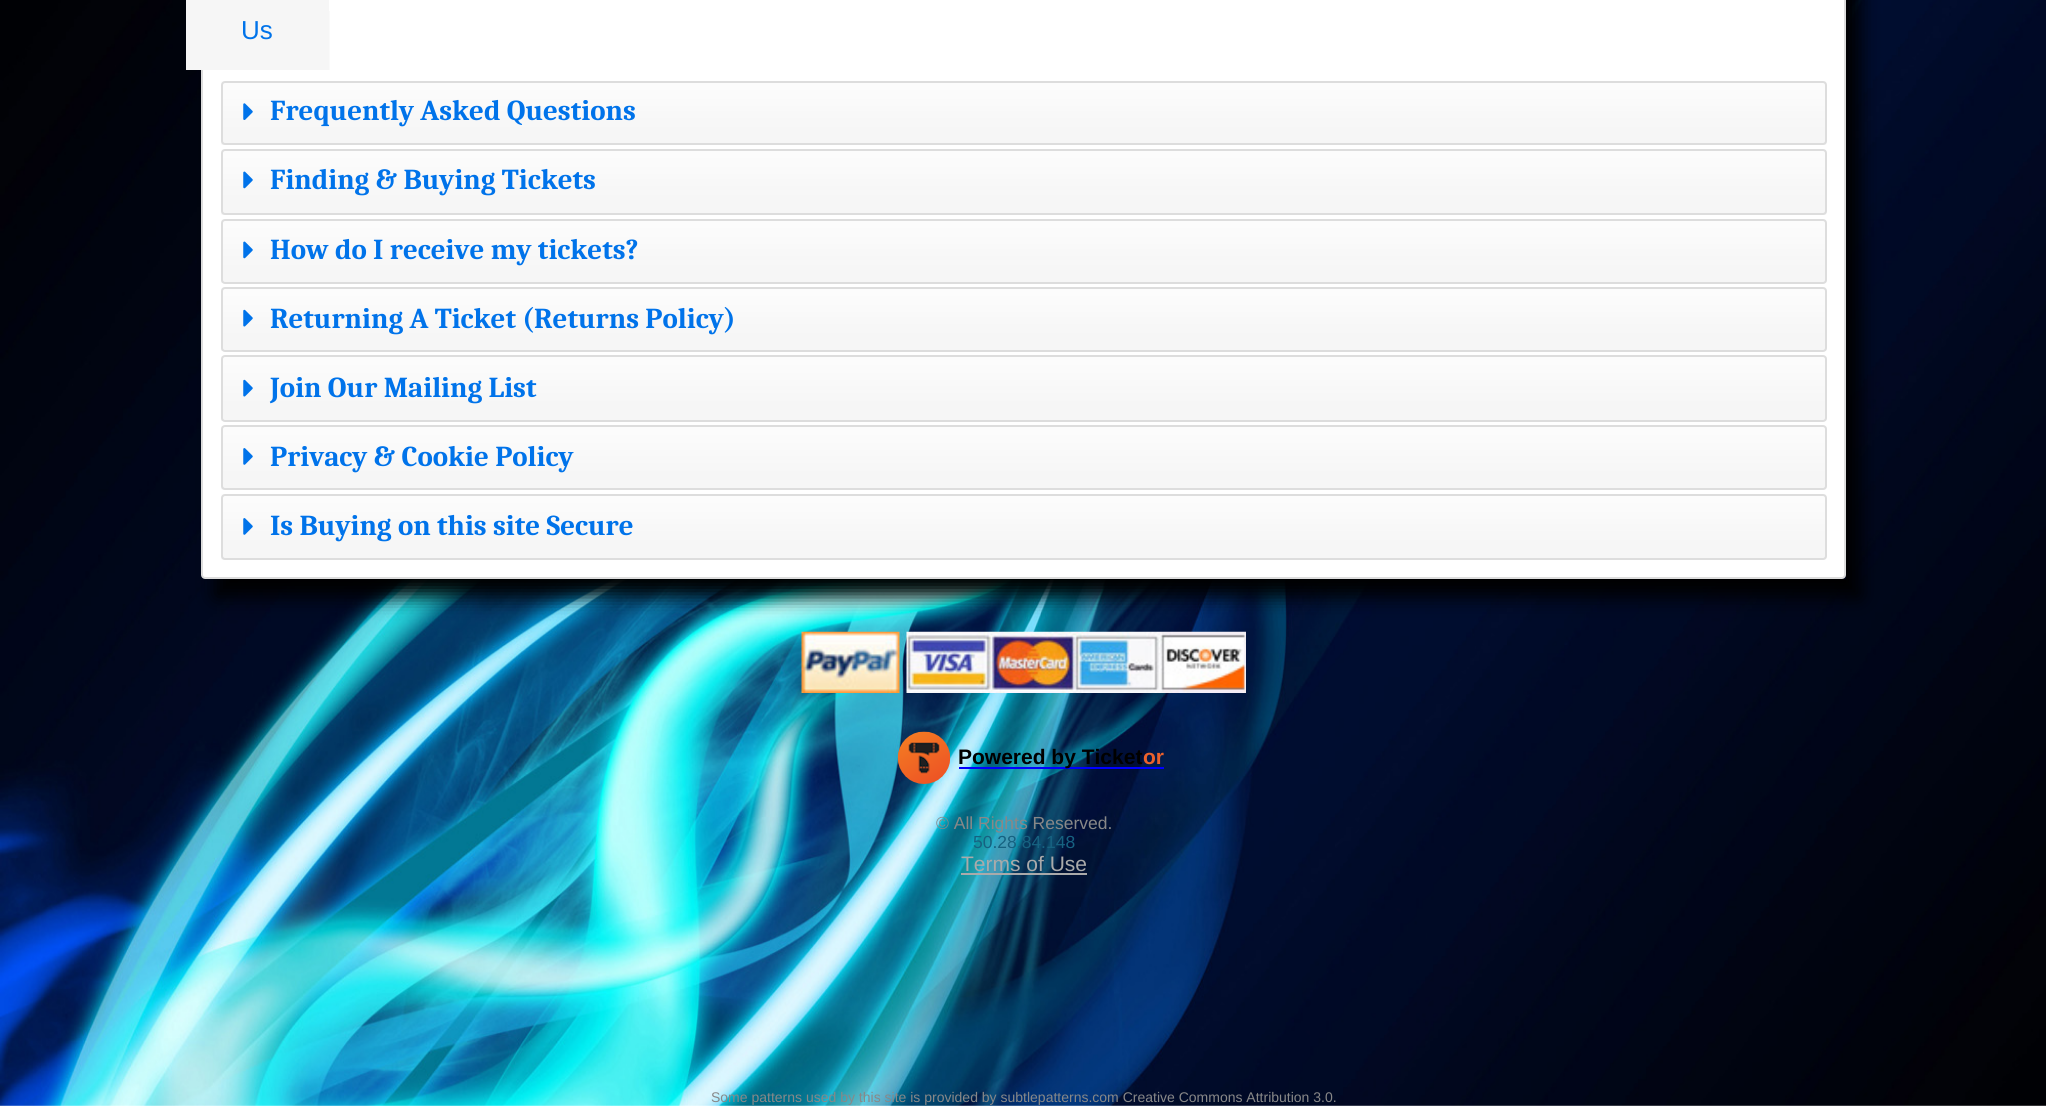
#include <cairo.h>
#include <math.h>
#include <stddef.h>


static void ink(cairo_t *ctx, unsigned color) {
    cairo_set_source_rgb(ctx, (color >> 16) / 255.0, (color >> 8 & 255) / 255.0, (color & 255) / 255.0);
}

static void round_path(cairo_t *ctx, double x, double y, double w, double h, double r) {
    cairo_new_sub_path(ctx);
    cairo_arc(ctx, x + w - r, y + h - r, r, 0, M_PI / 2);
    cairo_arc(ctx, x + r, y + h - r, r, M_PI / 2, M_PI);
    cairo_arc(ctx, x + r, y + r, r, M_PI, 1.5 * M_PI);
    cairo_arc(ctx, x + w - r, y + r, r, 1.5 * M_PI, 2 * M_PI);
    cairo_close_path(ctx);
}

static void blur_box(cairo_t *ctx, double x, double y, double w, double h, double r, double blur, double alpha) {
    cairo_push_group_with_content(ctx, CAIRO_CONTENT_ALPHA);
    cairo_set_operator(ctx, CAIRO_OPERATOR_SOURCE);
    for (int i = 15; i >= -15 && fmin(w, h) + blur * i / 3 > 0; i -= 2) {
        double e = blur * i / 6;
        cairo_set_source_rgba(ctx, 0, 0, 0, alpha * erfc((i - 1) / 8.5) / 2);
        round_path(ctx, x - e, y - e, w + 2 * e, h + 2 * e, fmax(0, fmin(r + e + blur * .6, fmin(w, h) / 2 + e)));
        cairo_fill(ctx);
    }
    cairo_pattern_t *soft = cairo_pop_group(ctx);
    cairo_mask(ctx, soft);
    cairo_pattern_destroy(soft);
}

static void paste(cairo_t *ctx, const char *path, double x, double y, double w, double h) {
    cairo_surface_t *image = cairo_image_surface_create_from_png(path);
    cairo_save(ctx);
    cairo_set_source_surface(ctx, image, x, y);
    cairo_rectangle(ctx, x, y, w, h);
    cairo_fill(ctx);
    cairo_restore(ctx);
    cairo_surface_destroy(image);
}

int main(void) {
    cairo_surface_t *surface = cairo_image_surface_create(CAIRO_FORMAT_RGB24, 2046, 1106);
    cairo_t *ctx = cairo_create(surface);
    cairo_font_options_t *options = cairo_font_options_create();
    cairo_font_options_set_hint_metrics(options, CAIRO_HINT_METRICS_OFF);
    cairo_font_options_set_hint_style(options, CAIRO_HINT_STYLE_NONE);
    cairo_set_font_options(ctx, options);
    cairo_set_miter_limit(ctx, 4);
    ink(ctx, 0xFFFFFF);
    cairo_paint(ctx);
    paste(ctx, "media/1.png", 0, 0, 2046, 1106);
    cairo_save(ctx);
    cairo_set_fill_rule(ctx, CAIRO_FILL_RULE_EVEN_ODD);
    cairo_new_path(ctx);
    cairo_move_to(ctx, 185, 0);
    cairo_line_to(ctx, 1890, 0);
    cairo_line_to(ctx, 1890, 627);
    cairo_line_to(ctx, 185, 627);
    cairo_close_path(ctx);
    cairo_move_to(ctx, 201, -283);
    cairo_line_to(ctx, 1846, -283);
    cairo_line_to(ctx, 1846, 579);
    cairo_line_to(ctx, 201, 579);
    cairo_close_path(ctx);
    cairo_clip(ctx);
    ink(ctx, 0x000000);
    blur_box(ctx, 215, -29, 1645, 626, 0, 9.5, 1);
    cairo_restore(ctx);
    ink(ctx, 0xFFFFFF);
    cairo_new_path(ctx);
    cairo_move_to(ctx, 202, -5);
    cairo_line_to(ctx, 1845, -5);
    cairo_line_to(ctx, 1845, 575);
    cairo_curve_to(ctx, 1845, 576.5, 1843.5, 578, 1842, 578);
    cairo_line_to(ctx, 205, 578);
    cairo_curve_to(ctx, 203.5, 578, 202, 576.5, 202, 575);
    cairo_close_path(ctx);
    cairo_fill_preserve(ctx);
    ink(ctx, 0xDDDDDD);
    cairo_stroke(ctx);
    ink(ctx, 0xF6F6F6);
    cairo_rectangle(ctx, 186, 0, 143, 70);
    cairo_fill(ctx);
    ink(ctx, 0xFAFAFA);
    cairo_rectangle(ctx, 329, 11, 1, 59);
    cairo_fill(ctx);
    cairo_select_font_face(ctx, "Liberation Sans", CAIRO_FONT_SLANT_NORMAL, CAIRO_FONT_WEIGHT_NORMAL);
    cairo_set_font_size(ctx, 26);
    ink(ctx, 0x0073EA);
    cairo_move_to(ctx, 241, 39);
    cairo_show_text(ctx, "Us");
    paste(ctx, "media/2.png", 221, 81, 1606, 64);
    round_path(ctx, 222, 82, 1604, 62, 3);
    ink(ctx, 0xDDDDDD);
    cairo_stroke(ctx);
    paste(ctx, "media/3.png", 243, 103, 10, 17);
    cairo_select_font_face(ctx, "Caladea", CAIRO_FONT_SLANT_NORMAL, CAIRO_FONT_WEIGHT_BOLD);
    cairo_set_font_size(ctx, 28.9);
    ink(ctx, 0x0073EA);
    cairo_move_to(ctx, 270, 120);
    cairo_show_text(ctx, "Frequently Asked Questions");
    paste(ctx, "media/4.png", 221, 149, 1606, 66);
    round_path(ctx, 222, 150, 1604, 64, 3);
    ink(ctx, 0xDDDDDD);
    cairo_stroke(ctx);
    paste(ctx, "media/5.png", 243, 171, 10, 18);
    ink(ctx, 0x0073EA);
    cairo_move_to(ctx, 270, 189);
    cairo_show_text(ctx, "Finding & Buying Tickets");
    paste(ctx, "media/6.png", 221, 219, 1606, 64);
    round_path(ctx, 222, 220, 1604, 63, 3);
    ink(ctx, 0xDDDDDD);
    cairo_stroke(ctx);
    paste(ctx, "media/5.png", 243, 241, 10, 18);
    ink(ctx, 0x0073EA);
    cairo_move_to(ctx, 270, 259);
    cairo_show_text(ctx, "How do I receive my tickets?");
    paste(ctx, "media/7.png", 221, 287, 1606, 64);
    round_path(ctx, 222, 288, 1604, 63, 3);
    ink(ctx, 0xDDDDDD);
    cairo_stroke(ctx);
    paste(ctx, "media/8.png", 243, 309, 10, 18);
    ink(ctx, 0x0073EA);
    cairo_move_to(ctx, 270, 328);
    cairo_show_text(ctx, "Returning A Ticket (Returns Policy)");
    paste(ctx, "media/9.png", 221, 356, 1606, 65);
    round_path(ctx, 222, 356, 1604, 65, 3);
    ink(ctx, 0xDDDDDD);
    cairo_stroke(ctx);
    paste(ctx, "media/10.png", 243, 379, 10, 18);
    ink(ctx, 0x0073EA);
    cairo_move_to(ctx, 270, 397);
    cairo_show_text(ctx, "Join Our Mailing List");
    paste(ctx, "media/11.png", 221, 426, 1606, 64);
    round_path(ctx, 222, 426, 1604, 63, 3);
    ink(ctx, 0xDDDDDD);
    cairo_stroke(ctx);
    paste(ctx, "media/12.png", 243, 448, 10, 17);
    ink(ctx, 0x0073EA);
    cairo_move_to(ctx, 270, 466);
    cairo_show_text(ctx, "Privacy & Cookie Policy");
    paste(ctx, "media/13.png", 221, 494, 1606, 66);
    round_path(ctx, 222, 495, 1604, 64, 3);
    ink(ctx, 0xDDDDDD);
    cairo_stroke(ctx);
    paste(ctx, "media/14.png", 243, 518, 10, 17);
    ink(ctx, 0x0073EA);
    cairo_move_to(ctx, 270, 535);
    cairo_show_text(ctx, "Is Buying on this site Secure");
    paste(ctx, "media/15.png", 801, 631, 99, 62);
    paste(ctx, "media/16.png", 906, 631, 340, 62);
    paste(ctx, "media/17.png", 897, 731, 54, 53);
    ink(ctx, 0x0000FF);
    cairo_rectangle(ctx, 959, 767, 205, 2);
    cairo_fill(ctx);
    cairo_select_font_face(ctx, "Liberation Sans", CAIRO_FONT_SLANT_NORMAL, CAIRO_FONT_WEIGHT_BOLD);
    cairo_set_font_size(ctx, 21);
    ink(ctx, 0x000000);
    cairo_move_to(ctx, 958, 764);
    cairo_show_text(ctx, "Powered by Ticket");
    ink(ctx, 0xED612B);
    cairo_move_to(ctx, 1143, 764);
    cairo_show_text(ctx, "or");
    cairo_select_font_face(ctx, "Liberation Sans", CAIRO_FONT_SLANT_NORMAL, CAIRO_FONT_WEIGHT_NORMAL);
    cairo_set_font_size(ctx, 17.5);
    ink(ctx, 0x888888);
    cairo_move_to(ctx, 936, 829);
    cairo_show_text(ctx, "© All Rights Reserved.");
    ink(ctx, 0x166281);
    cairo_move_to(ctx, 973, 848);
    cairo_show_text(ctx, "50.28.84.148");
    cairo_set_font_size(ctx, 21);
    ink(ctx, 0xAAAAAA);
    cairo_move_to(ctx, 961, 871);
    cairo_show_text(ctx, "Terms of Use");
    cairo_rectangle(ctx, 961, 873, 126, 2);
    cairo_fill(ctx);
    cairo_set_font_size(ctx, 14);
    ink(ctx, 0x888888);
    cairo_move_to(ctx, 711, 1102);
    cairo_show_text(ctx, "Some patterns used by this site is provided by subtlepatterns.com Creative Commons Attribution 3.0.");
    cairo_surface_write_to_png(surface, "image.png");
    cairo_font_options_destroy(options);
    cairo_destroy(ctx);
    cairo_surface_destroy(surface);
    return 0;
}
